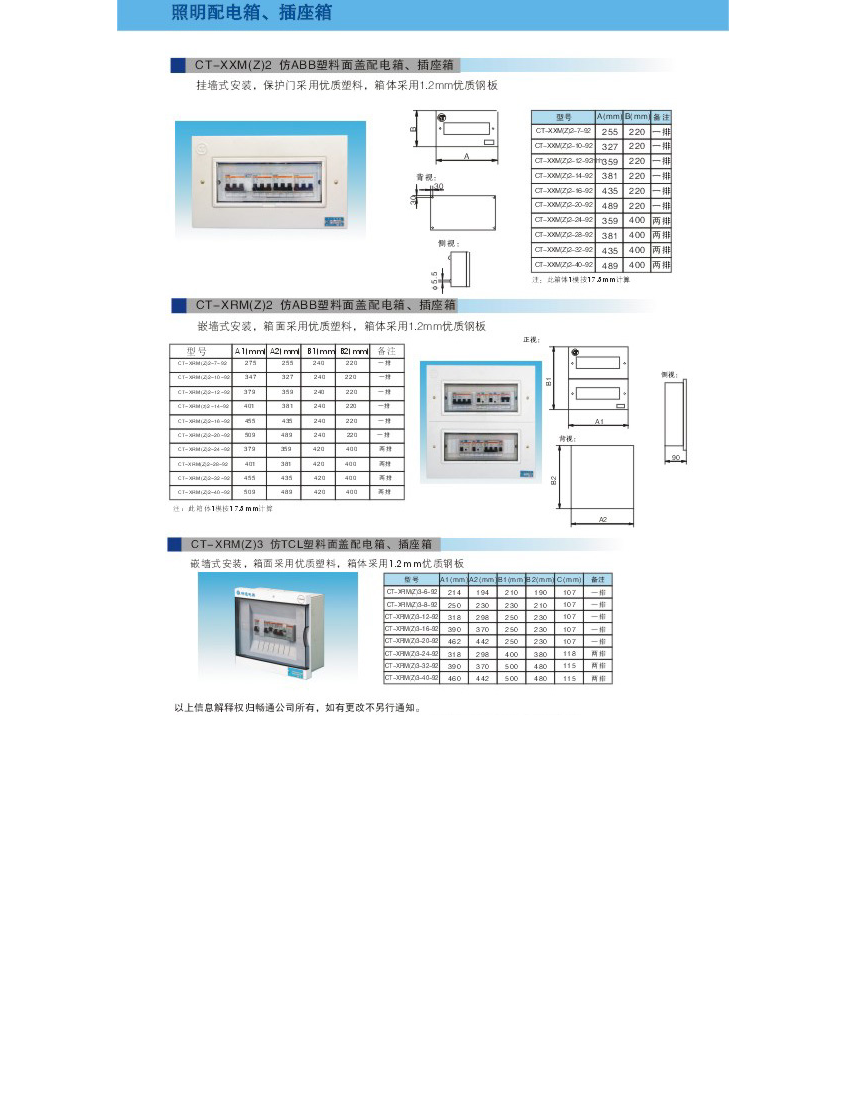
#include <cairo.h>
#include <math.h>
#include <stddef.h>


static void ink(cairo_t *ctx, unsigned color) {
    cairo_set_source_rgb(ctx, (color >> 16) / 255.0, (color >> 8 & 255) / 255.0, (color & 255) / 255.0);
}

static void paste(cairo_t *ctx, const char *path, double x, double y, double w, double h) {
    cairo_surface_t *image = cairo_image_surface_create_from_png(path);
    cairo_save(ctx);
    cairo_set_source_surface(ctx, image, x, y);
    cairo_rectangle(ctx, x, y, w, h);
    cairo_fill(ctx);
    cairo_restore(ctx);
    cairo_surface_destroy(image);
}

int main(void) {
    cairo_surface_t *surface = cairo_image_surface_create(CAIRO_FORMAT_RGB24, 845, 1101);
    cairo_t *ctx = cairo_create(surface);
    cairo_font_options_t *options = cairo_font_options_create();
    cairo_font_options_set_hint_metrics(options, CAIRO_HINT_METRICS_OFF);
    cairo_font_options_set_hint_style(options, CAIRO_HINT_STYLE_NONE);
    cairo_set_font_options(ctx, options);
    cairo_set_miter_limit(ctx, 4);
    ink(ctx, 0xFFFFFF);
    cairo_paint(ctx);
    paste(ctx, "media/1.png", 117, 0, 612, 715);
    cairo_surface_write_to_png(surface, "image.png");
    cairo_font_options_destroy(options);
    cairo_destroy(ctx);
    cairo_surface_destroy(surface);
    return 0;
}
